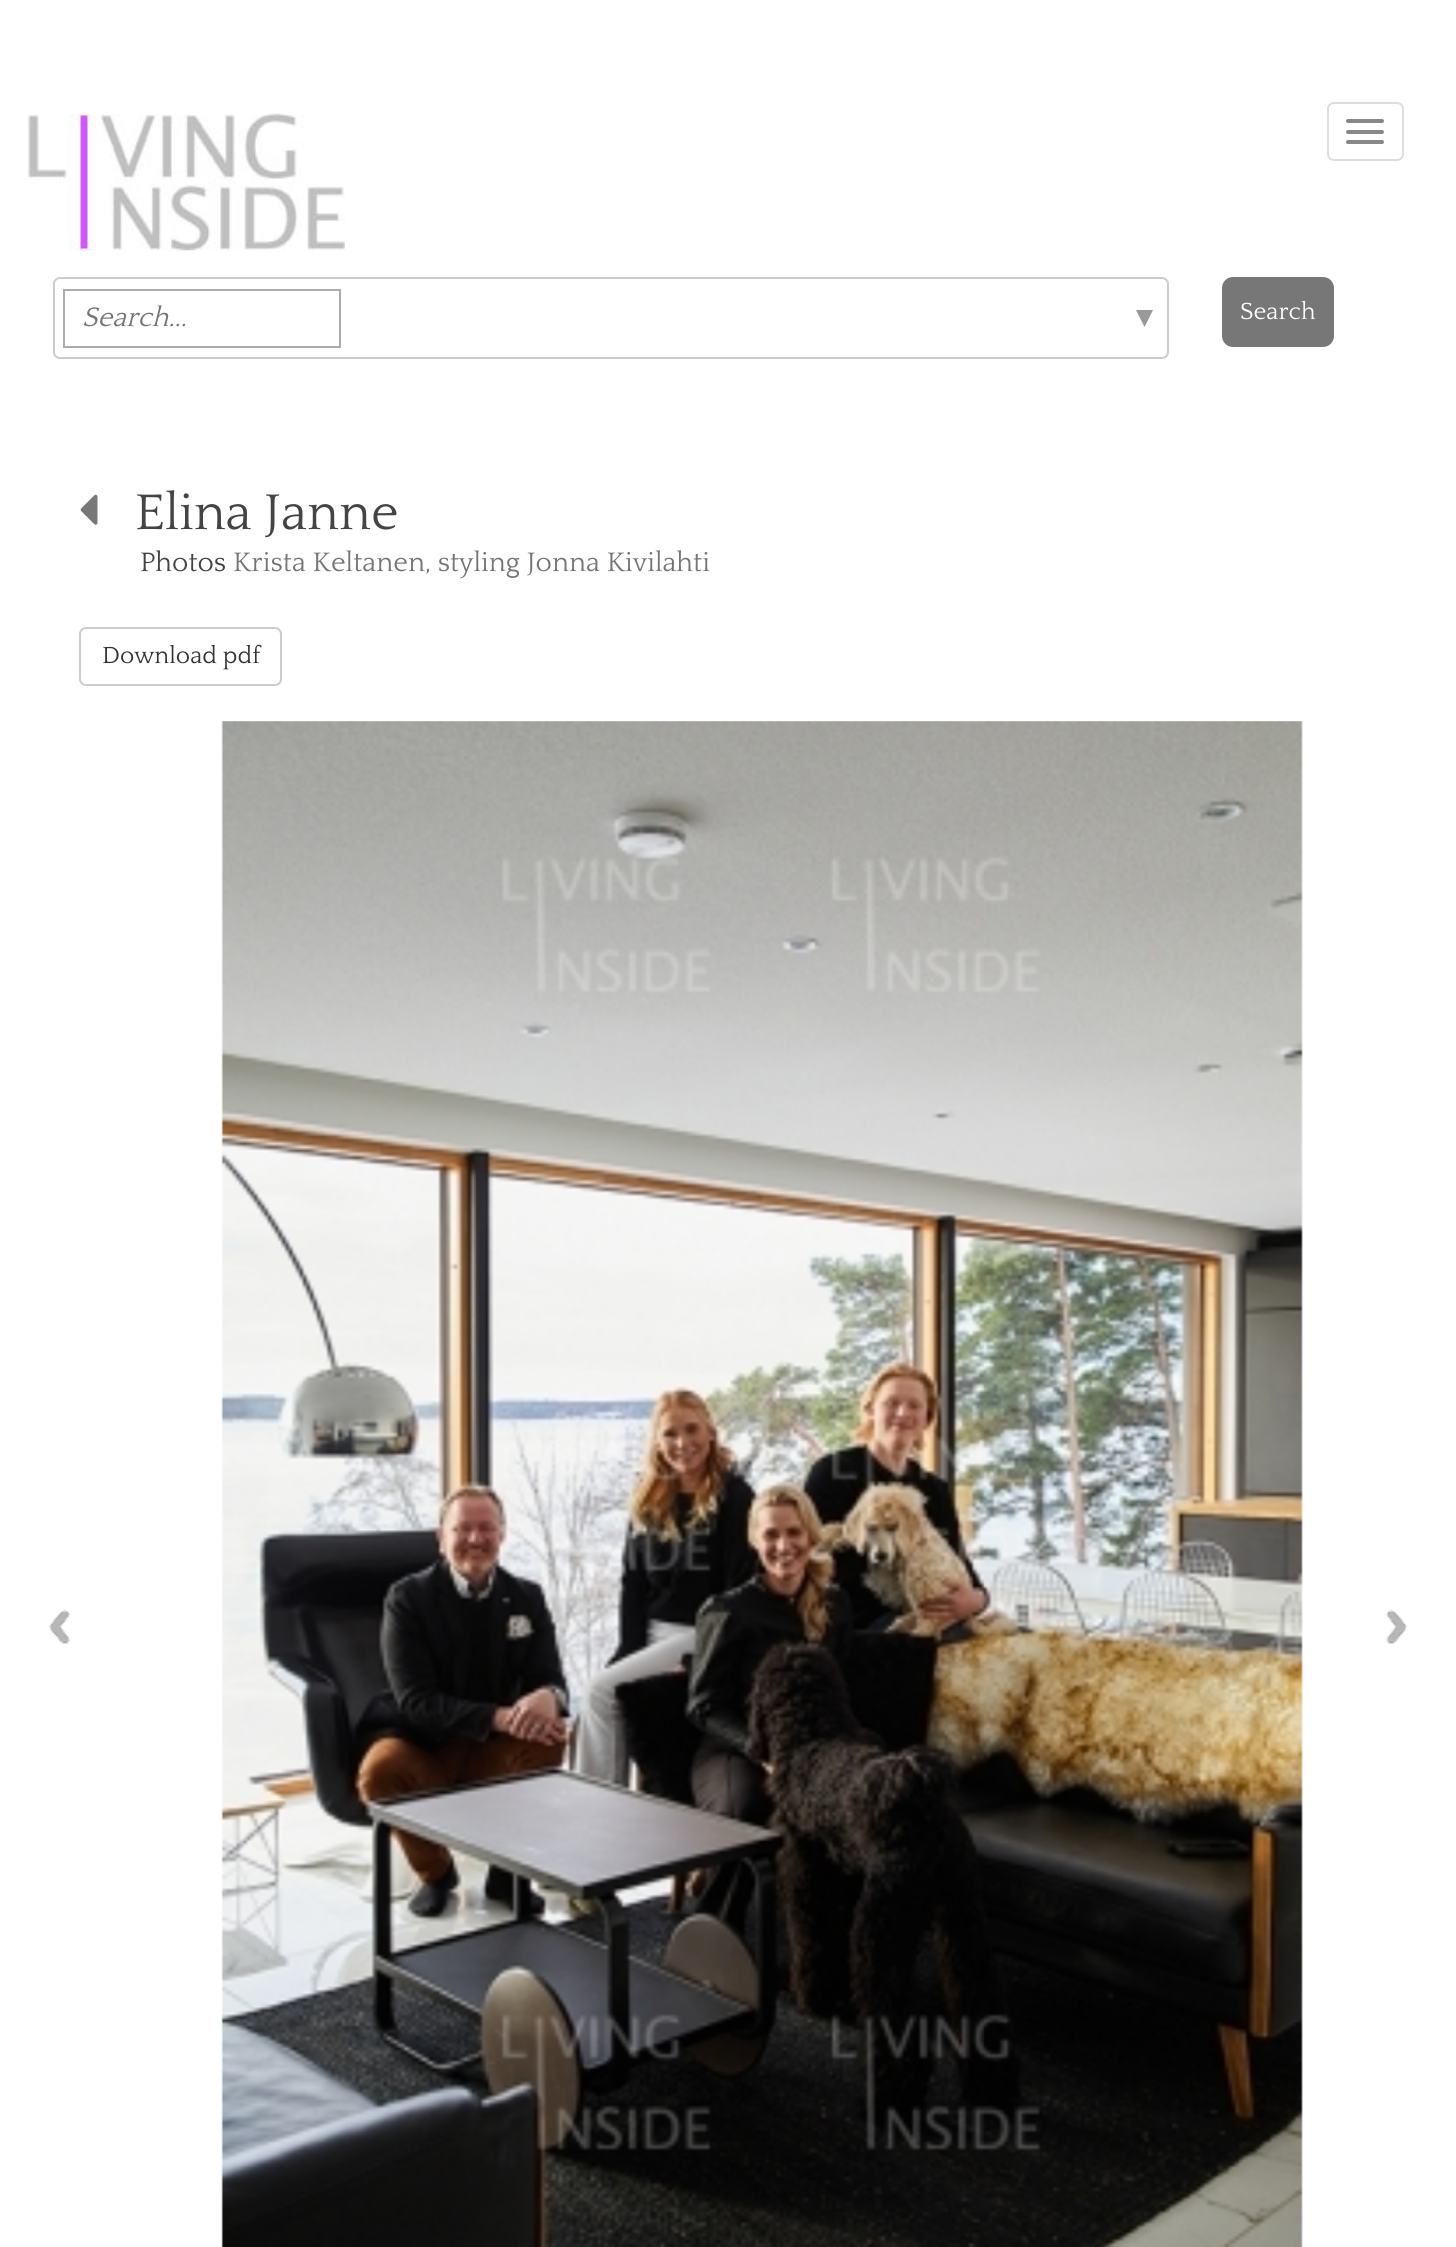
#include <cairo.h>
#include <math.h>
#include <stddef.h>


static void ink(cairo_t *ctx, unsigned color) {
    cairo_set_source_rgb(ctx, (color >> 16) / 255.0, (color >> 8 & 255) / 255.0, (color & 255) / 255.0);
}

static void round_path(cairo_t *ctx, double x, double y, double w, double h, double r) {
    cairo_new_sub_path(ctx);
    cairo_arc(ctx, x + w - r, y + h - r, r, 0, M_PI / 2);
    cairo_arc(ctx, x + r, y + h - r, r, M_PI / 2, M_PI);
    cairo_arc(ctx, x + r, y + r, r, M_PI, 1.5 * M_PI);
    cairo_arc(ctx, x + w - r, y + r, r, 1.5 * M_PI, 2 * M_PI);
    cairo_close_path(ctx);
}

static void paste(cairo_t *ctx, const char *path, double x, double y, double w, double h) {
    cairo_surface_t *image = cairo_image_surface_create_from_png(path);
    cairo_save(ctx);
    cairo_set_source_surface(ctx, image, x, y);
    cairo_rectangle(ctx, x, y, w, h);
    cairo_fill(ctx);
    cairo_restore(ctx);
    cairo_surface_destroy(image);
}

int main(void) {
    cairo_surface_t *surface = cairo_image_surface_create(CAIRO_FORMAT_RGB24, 1456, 2247);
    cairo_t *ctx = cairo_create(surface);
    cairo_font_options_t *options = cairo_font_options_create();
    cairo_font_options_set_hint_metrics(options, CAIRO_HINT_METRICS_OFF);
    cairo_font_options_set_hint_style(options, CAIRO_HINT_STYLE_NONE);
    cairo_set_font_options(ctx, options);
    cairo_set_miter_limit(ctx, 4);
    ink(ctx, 0xFFFFFF);
    cairo_paint(ctx);
    paste(ctx, "media/1.png", 27, 113, 318, 138);
    round_path(ctx, 1328, 103, 75, 57, 6);
    ink(ctx, 0xDDDDDD);
    cairo_stroke(ctx);
    ink(ctx, 0x888888);
    round_path(ctx, 1346, 119, 38, 4, 2);
    cairo_fill(ctx);
    round_path(ctx, 1346, 130, 38, 4, 2);
    cairo_fill(ctx);
    round_path(ctx, 1346, 140, 38, 4, 2);
    cairo_fill(ctx);
    round_path(ctx, 54, 278, 1114, 80, 6);
    ink(ctx, 0xCCCCCC);
    cairo_stroke(ctx);
    cairo_rectangle(ctx, 64, 290, 276, 57);
    ink(ctx, 0xACACAC);
    cairo_stroke(ctx);
    cairo_select_font_face(ctx, "Quattrocento", CAIRO_FONT_SLANT_ITALIC, CAIRO_FONT_WEIGHT_NORMAL);
    cairo_set_font_size(ctx, 28);
    ink(ctx, 0x757575);
    cairo_move_to(ctx, 82, 326);
    cairo_show_text(ctx, "Search...");
    ink(ctx, 0x999999);
    cairo_new_path(ctx);
    cairo_move_to(ctx, 1136, 310);
    cairo_line_to(ctx, 1153, 310);
    cairo_line_to(ctx, 1144.5, 327);
    cairo_close_path(ctx);
    cairo_fill(ctx);
    ink(ctx, 0x777777);
    round_path(ctx, 1222, 277, 112, 70, 11);
    cairo_fill(ctx);
    cairo_select_font_face(ctx, "Quattrocento", CAIRO_FONT_SLANT_NORMAL, CAIRO_FONT_WEIGHT_NORMAL);
    cairo_set_font_size(ctx, 24.5);
    ink(ctx, 0xFFFFFF);
    cairo_move_to(ctx, 1240, 319);
    cairo_show_text(ctx, "Search");
    paste(ctx, "media/2.png", 80, 494, 18, 31);
    cairo_set_font_size(ctx, 52.5);
    ink(ctx, 0x444444);
    cairo_move_to(ctx, 135, 529);
    cairo_show_text(ctx, "Elina Janne");
    cairo_set_font_size(ctx, 28);
    cairo_move_to(ctx, 140, 571);
    cairo_show_text(ctx, "Photos");
    ink(ctx, 0x757575);
    cairo_move_to(ctx, 233, 571);
    cairo_show_text(ctx, "Krista Keltanen, styling Jonna Kivilahti");
    round_path(ctx, 80, 628, 201, 57, 6);
    ink(ctx, 0xCCCCCC);
    cairo_stroke(ctx);
    cairo_set_font_size(ctx, 24.5);
    ink(ctx, 0x333333);
    cairo_move_to(ctx, 102, 663);
    cairo_show_text(ctx, "Download pdf");
    paste(ctx, "media/3.png", 48, 1609, 23, 35);
    paste(ctx, "media/4.png", 221, 721, 1082, 1526);
    paste(ctx, "media/5.png", 1385, 1609, 23, 35);
    cairo_surface_write_to_png(surface, "image.png");
    cairo_font_options_destroy(options);
    cairo_destroy(ctx);
    cairo_surface_destroy(surface);
    return 0;
}
